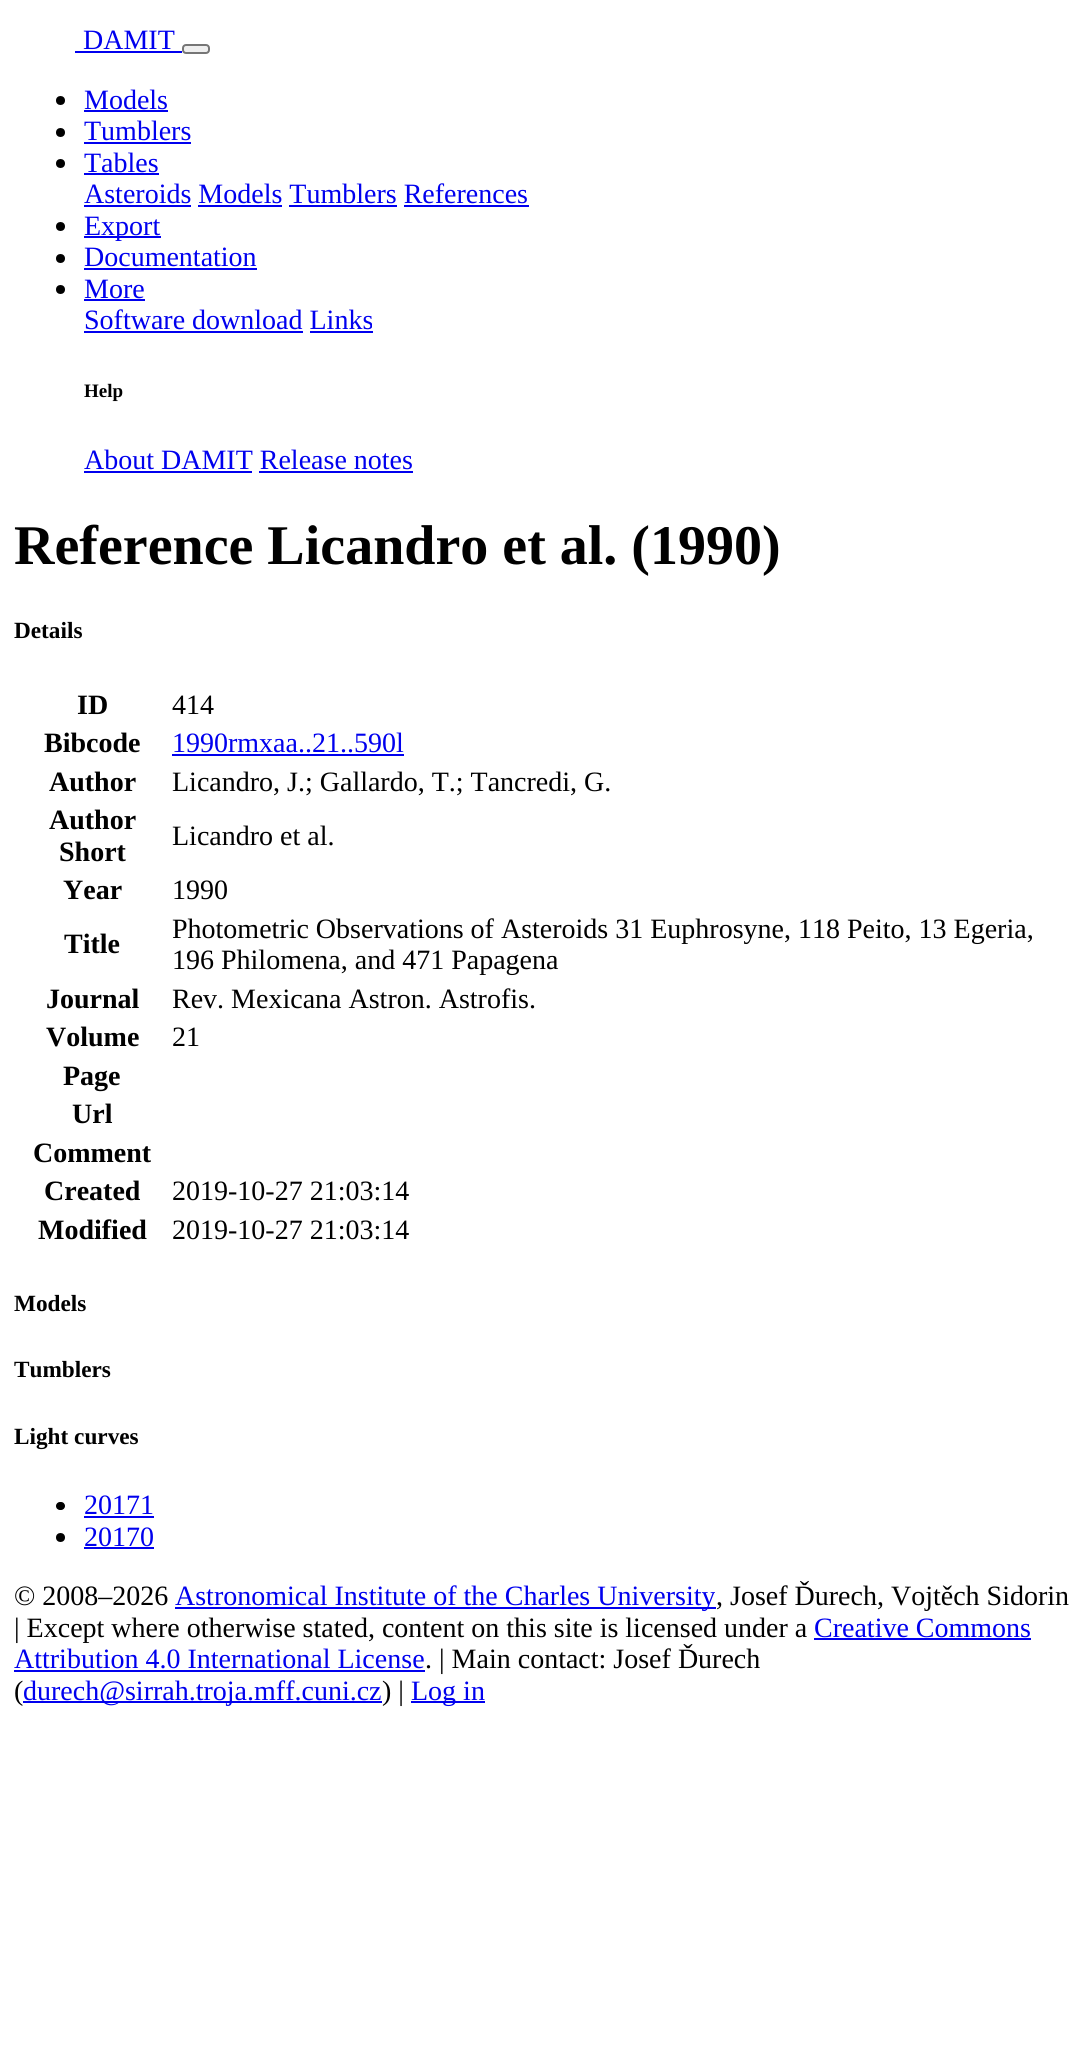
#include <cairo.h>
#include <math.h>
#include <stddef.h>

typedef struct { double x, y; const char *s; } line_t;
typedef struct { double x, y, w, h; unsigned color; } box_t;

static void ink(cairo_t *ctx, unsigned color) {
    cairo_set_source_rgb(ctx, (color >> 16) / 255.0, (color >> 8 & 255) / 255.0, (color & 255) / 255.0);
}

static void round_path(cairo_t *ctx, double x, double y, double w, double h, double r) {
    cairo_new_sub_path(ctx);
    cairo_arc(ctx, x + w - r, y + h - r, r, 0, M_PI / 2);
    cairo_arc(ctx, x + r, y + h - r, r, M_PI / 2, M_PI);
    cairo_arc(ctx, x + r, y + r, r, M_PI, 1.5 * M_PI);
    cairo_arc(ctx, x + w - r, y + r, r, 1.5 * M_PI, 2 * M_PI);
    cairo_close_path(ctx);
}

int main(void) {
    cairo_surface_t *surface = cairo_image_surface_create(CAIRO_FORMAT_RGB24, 1084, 2070);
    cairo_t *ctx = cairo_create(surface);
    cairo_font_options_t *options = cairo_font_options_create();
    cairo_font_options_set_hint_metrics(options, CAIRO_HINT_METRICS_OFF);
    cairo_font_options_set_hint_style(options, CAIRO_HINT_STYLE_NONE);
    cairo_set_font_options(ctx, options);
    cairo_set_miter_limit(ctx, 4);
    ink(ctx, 0xFFFFFF);
    cairo_paint(ctx);
    cairo_select_font_face(ctx, "Liberation Serif", CAIRO_FONT_SLANT_NORMAL, CAIRO_FONT_WEIGHT_NORMAL);
    cairo_set_font_size(ctx, 28);
    ink(ctx, 0x0000EE);
    cairo_move_to(ctx, 83, 49);
    cairo_show_text(ctx, "DAMIT");
    cairo_rectangle(ctx, 75, 51, 107, 2);
    cairo_fill(ctx);
    ink(ctx, 0xEFEFEF);
    round_path(ctx, 183, 45, 26, 8, 3);
    cairo_fill_preserve(ctx);
    ink(ctx, 0x767676);
    cairo_stroke(ctx);
    ink(ctx, 0x000000);
    cairo_arc(ctx, 60.5, 100.5, 4.5, 0, 2 * M_PI);
    cairo_fill(ctx);
    ink(ctx, 0x0000EE);
    cairo_move_to(ctx, 84, 109);
    cairo_show_text(ctx, "Models");
    cairo_rectangle(ctx, 84, 110, 84, 2);
    cairo_fill(ctx);
    ink(ctx, 0x000000);
    cairo_arc(ctx, 60.5, 132.5, 4.5, 0, 2 * M_PI);
    cairo_fill(ctx);
    ink(ctx, 0x0000EE);
    cairo_move_to(ctx, 84, 140);
    cairo_show_text(ctx, "Tumblers");
    cairo_rectangle(ctx, 84, 142, 107, 2);
    cairo_fill(ctx);
    ink(ctx, 0x000000);
    cairo_arc(ctx, 60.5, 163.5, 4.5, 0, 2 * M_PI);
    cairo_fill(ctx);
    ink(ctx, 0x0000EE);
    cairo_move_to(ctx, 84, 172);
    cairo_show_text(ctx, "Tables");
    cairo_rectangle(ctx, 84, 173, 75, 2);
    cairo_fill(ctx);
    cairo_move_to(ctx, 84, 203);
    cairo_show_text(ctx, "Asteroids Models Tumblers References");
    {
        static const box_t items[] = {
            {84, 205, 107, 2, 0x0000EE},
            {198, 205, 84, 2, 0x0000EE},
            {289, 205, 108, 2, 0x0000EE},
            {404, 205, 125, 2, 0x0000EE},
        };
        for (size_t i = 0; i < sizeof items / sizeof *items; i++) {
            ink(ctx, items[i].color);
            cairo_rectangle(ctx, items[i].x, items[i].y, items[i].w, items[i].h);
            cairo_fill(ctx);
        }
    }
    ink(ctx, 0x000000);
    cairo_new_path(ctx);
    cairo_arc(ctx, 60.5, 226.5, 4.5, 0, 2 * M_PI);
    cairo_fill(ctx);
    ink(ctx, 0x0000EE);
    cairo_rectangle(ctx, 84, 236, 77, 2);
    cairo_fill(ctx);
    cairo_move_to(ctx, 84, 235);
    cairo_show_text(ctx, "Export");
    ink(ctx, 0x000000);
    cairo_new_path(ctx);
    cairo_arc(ctx, 60.5, 258.5, 4.5, 0, 2 * M_PI);
    cairo_fill(ctx);
    ink(ctx, 0x0000EE);
    cairo_move_to(ctx, 84, 266);
    cairo_show_text(ctx, "Documentation");
    cairo_rectangle(ctx, 84, 268, 173, 2);
    cairo_fill(ctx);
    ink(ctx, 0x000000);
    cairo_arc(ctx, 60.5, 289.5, 4.5, 0, 2 * M_PI);
    cairo_fill(ctx);
    ink(ctx, 0x0000EE);
    cairo_move_to(ctx, 84, 298);
    cairo_show_text(ctx, "More");
    cairo_rectangle(ctx, 84, 299, 61, 2);
    cairo_fill(ctx);
    cairo_move_to(ctx, 84, 329);
    cairo_show_text(ctx, "Software download Links");
    cairo_rectangle(ctx, 84, 331, 219, 2);
    cairo_fill(ctx);
    cairo_rectangle(ctx, 310, 331, 63, 2);
    cairo_fill(ctx);
    cairo_select_font_face(ctx, "Liberation Serif", CAIRO_FONT_SLANT_NORMAL, CAIRO_FONT_WEIGHT_BOLD);
    cairo_set_font_size(ctx, 19);
    ink(ctx, 0x000000);
    cairo_move_to(ctx, 84, 397);
    cairo_show_text(ctx, "Help");
    cairo_select_font_face(ctx, "Liberation Serif", CAIRO_FONT_SLANT_NORMAL, CAIRO_FONT_WEIGHT_NORMAL);
    cairo_set_font_size(ctx, 28);
    ink(ctx, 0x0000EE);
    cairo_move_to(ctx, 84, 469);
    cairo_show_text(ctx, "About DAMIT Release notes");
    cairo_rectangle(ctx, 84, 471, 168, 2);
    cairo_fill(ctx);
    cairo_rectangle(ctx, 259, 471, 154, 2);
    cairo_fill(ctx);
    cairo_select_font_face(ctx, "Liberation Serif", CAIRO_FONT_SLANT_NORMAL, CAIRO_FONT_WEIGHT_BOLD);
    cairo_set_font_size(ctx, 56);
    ink(ctx, 0x000000);
    cairo_move_to(ctx, 14, 564);
    cairo_show_text(ctx, "Reference Licandro et al. (1990)");
    cairo_set_font_size(ctx, 23.25);
    cairo_move_to(ctx, 14, 638);
    cairo_show_text(ctx, "Details");
    cairo_set_font_size(ctx, 28);
    cairo_move_to(ctx, 77, 714);
    cairo_show_text(ctx, "ID");
    cairo_select_font_face(ctx, "Liberation Serif", CAIRO_FONT_SLANT_NORMAL, CAIRO_FONT_WEIGHT_NORMAL);
    cairo_move_to(ctx, 172, 714);
    cairo_show_text(ctx, "414");
    cairo_select_font_face(ctx, "Liberation Serif", CAIRO_FONT_SLANT_NORMAL, CAIRO_FONT_WEIGHT_BOLD);
    cairo_move_to(ctx, 44, 752);
    cairo_show_text(ctx, "Bibcode");
    cairo_select_font_face(ctx, "Liberation Serif", CAIRO_FONT_SLANT_NORMAL, CAIRO_FONT_WEIGHT_NORMAL);
    ink(ctx, 0x0000EE);
    cairo_move_to(ctx, 172, 752);
    cairo_show_text(ctx, "1990rmxaa..21..590l");
    cairo_rectangle(ctx, 172, 754, 232, 2);
    cairo_fill(ctx);
    cairo_select_font_face(ctx, "Liberation Serif", CAIRO_FONT_SLANT_NORMAL, CAIRO_FONT_WEIGHT_BOLD);
    ink(ctx, 0x000000);
    cairo_move_to(ctx, 49, 791);
    cairo_show_text(ctx, "Author");
    cairo_select_font_face(ctx, "Liberation Serif", CAIRO_FONT_SLANT_NORMAL, CAIRO_FONT_WEIGHT_NORMAL);
    cairo_move_to(ctx, 172, 791);
    cairo_show_text(ctx, "Licandro, J.; Gallardo, T.; Tancredi, G.");
    cairo_select_font_face(ctx, "Liberation Serif", CAIRO_FONT_SLANT_NORMAL, CAIRO_FONT_WEIGHT_BOLD);
    cairo_move_to(ctx, 49, 829);
    cairo_show_text(ctx, "Author");
    cairo_move_to(ctx, 59, 861);
    cairo_show_text(ctx, "Short");
    cairo_select_font_face(ctx, "Liberation Serif", CAIRO_FONT_SLANT_NORMAL, CAIRO_FONT_WEIGHT_NORMAL);
    cairo_move_to(ctx, 172, 845);
    cairo_show_text(ctx, "Licandro et al.");
    cairo_select_font_face(ctx, "Liberation Serif", CAIRO_FONT_SLANT_NORMAL, CAIRO_FONT_WEIGHT_BOLD);
    cairo_move_to(ctx, 63, 899);
    cairo_show_text(ctx, "Year");
    cairo_select_font_face(ctx, "Liberation Serif", CAIRO_FONT_SLANT_NORMAL, CAIRO_FONT_WEIGHT_NORMAL);
    cairo_move_to(ctx, 172, 899);
    cairo_show_text(ctx, "1990");
    cairo_select_font_face(ctx, "Liberation Serif", CAIRO_FONT_SLANT_NORMAL, CAIRO_FONT_WEIGHT_BOLD);
    cairo_move_to(ctx, 64, 953);
    cairo_show_text(ctx, "Title");
    cairo_select_font_face(ctx, "Liberation Serif", CAIRO_FONT_SLANT_NORMAL, CAIRO_FONT_WEIGHT_NORMAL);
    cairo_move_to(ctx, 172, 938);
    cairo_show_text(ctx, "Photometric Observations of Asteroids 31 Euphrosyne, 118 Peito, 13 Egeria,");
    cairo_move_to(ctx, 172, 969);
    cairo_show_text(ctx, "196 Philomena, and 471 Papagena");
    cairo_select_font_face(ctx, "Liberation Serif", CAIRO_FONT_SLANT_NORMAL, CAIRO_FONT_WEIGHT_BOLD);
    cairo_move_to(ctx, 46, 1008);
    cairo_show_text(ctx, "Journal");
    cairo_select_font_face(ctx, "Liberation Serif", CAIRO_FONT_SLANT_NORMAL, CAIRO_FONT_WEIGHT_NORMAL);
    cairo_move_to(ctx, 172, 1008);
    cairo_show_text(ctx, "Rev. Mexicana Astron. Astrofis.");
    cairo_select_font_face(ctx, "Liberation Serif", CAIRO_FONT_SLANT_NORMAL, CAIRO_FONT_WEIGHT_BOLD);
    cairo_move_to(ctx, 46, 1046);
    cairo_show_text(ctx, "Volume");
    cairo_select_font_face(ctx, "Liberation Serif", CAIRO_FONT_SLANT_NORMAL, CAIRO_FONT_WEIGHT_NORMAL);
    cairo_move_to(ctx, 172, 1046);
    cairo_show_text(ctx, "21");
    cairo_select_font_face(ctx, "Liberation Serif", CAIRO_FONT_SLANT_NORMAL, CAIRO_FONT_WEIGHT_BOLD);
    {
        static const line_t items[] = {
            {63, 1085, "Page"},
            {72, 1123, "Url"},
            {33, 1162, "Comment"},
            {44, 1200, "Created"},
        };
        for (size_t i = 0; i < sizeof items / sizeof *items; i++) {
            cairo_move_to(ctx, items[i].x, items[i].y);
            cairo_show_text(ctx, items[i].s);
        }
    }
    cairo_select_font_face(ctx, "Liberation Serif", CAIRO_FONT_SLANT_NORMAL, CAIRO_FONT_WEIGHT_NORMAL);
    cairo_move_to(ctx, 172, 1200);
    cairo_show_text(ctx, "2019-10-27 21:03:14");
    cairo_select_font_face(ctx, "Liberation Serif", CAIRO_FONT_SLANT_NORMAL, CAIRO_FONT_WEIGHT_BOLD);
    cairo_move_to(ctx, 38, 1239);
    cairo_show_text(ctx, "Modified");
    cairo_select_font_face(ctx, "Liberation Serif", CAIRO_FONT_SLANT_NORMAL, CAIRO_FONT_WEIGHT_NORMAL);
    cairo_move_to(ctx, 172, 1239);
    cairo_show_text(ctx, "2019-10-27 21:03:14");
    cairo_select_font_face(ctx, "Liberation Serif", CAIRO_FONT_SLANT_NORMAL, CAIRO_FONT_WEIGHT_BOLD);
    cairo_set_font_size(ctx, 23.25);
    {
        static const line_t items[] = {
            {14, 1311, "Models"},
            {14, 1377, "Tumblers"},
            {14, 1444, "Light curves"},
        };
        for (size_t i = 0; i < sizeof items / sizeof *items; i++) {
            cairo_move_to(ctx, items[i].x, items[i].y);
            cairo_show_text(ctx, items[i].s);
        }
    }
    round_path(ctx, 56, 1502, 9, 8, 4);
    cairo_fill(ctx);
    cairo_select_font_face(ctx, "Liberation Serif", CAIRO_FONT_SLANT_NORMAL, CAIRO_FONT_WEIGHT_NORMAL);
    cairo_set_font_size(ctx, 28);
    ink(ctx, 0x0000EE);
    cairo_move_to(ctx, 84, 1514);
    cairo_show_text(ctx, "20171");
    cairo_rectangle(ctx, 84, 1516, 70, 2);
    cairo_fill(ctx);
    ink(ctx, 0x000000);
    cairo_arc(ctx, 60.5, 1537.5, 4.5, 0, 2 * M_PI);
    cairo_fill(ctx);
    ink(ctx, 0x0000EE);
    cairo_move_to(ctx, 84, 1546);
    cairo_show_text(ctx, "20170");
    cairo_rectangle(ctx, 84, 1547, 70, 2);
    cairo_fill(ctx);
    ink(ctx, 0x000000);
    cairo_move_to(ctx, 14, 1605);
    cairo_show_text(ctx, "© 2008–2026");
    ink(ctx, 0x0000EE);
    cairo_rectangle(ctx, 175, 1607, 541, 2);
    cairo_fill(ctx);
    cairo_move_to(ctx, 175, 1605);
    cairo_show_text(ctx, "Astronomical Institute of the Charles University");
    ink(ctx, 0x000000);
    cairo_move_to(ctx, 716, 1605);
    cairo_show_text(ctx, ", Josef Ďurech, Vojtěch Sidorin");
    cairo_move_to(ctx, 14, 1637);
    cairo_show_text(ctx, "| Except where otherwise stated, content on this site is licensed under a");
    ink(ctx, 0x0000EE);
    cairo_move_to(ctx, 814, 1637);
    cairo_show_text(ctx, "Creative Commons");
    cairo_rectangle(ctx, 814, 1638, 217, 2);
    cairo_fill(ctx);
    cairo_move_to(ctx, 14, 1668);
    cairo_show_text(ctx, "Attribution 4.0 International License");
    cairo_rectangle(ctx, 14, 1670, 411, 2);
    cairo_fill(ctx);
    ink(ctx, 0x000000);
    cairo_move_to(ctx, 425, 1668);
    cairo_show_text(ctx, ". | Main contact: Josef Ďurech");
    cairo_move_to(ctx, 14, 1700);
    cairo_show_text(ctx, "(");
    ink(ctx, 0x0000EE);
    cairo_rectangle(ctx, 23, 1701, 359, 2);
    cairo_fill(ctx);
    cairo_move_to(ctx, 23, 1700);
    cairo_show_text(ctx, "durech@sirrah.troja.mff.cuni.cz");
    ink(ctx, 0x000000);
    cairo_move_to(ctx, 382, 1700);
    cairo_show_text(ctx, ") |");
    ink(ctx, 0x0000EE);
    cairo_rectangle(ctx, 411, 1701, 74, 2);
    cairo_fill(ctx);
    cairo_move_to(ctx, 411, 1700);
    cairo_show_text(ctx, "Log in");
    cairo_surface_write_to_png(surface, "image.png");
    cairo_font_options_destroy(options);
    cairo_destroy(ctx);
    cairo_surface_destroy(surface);
    return 0;
}
